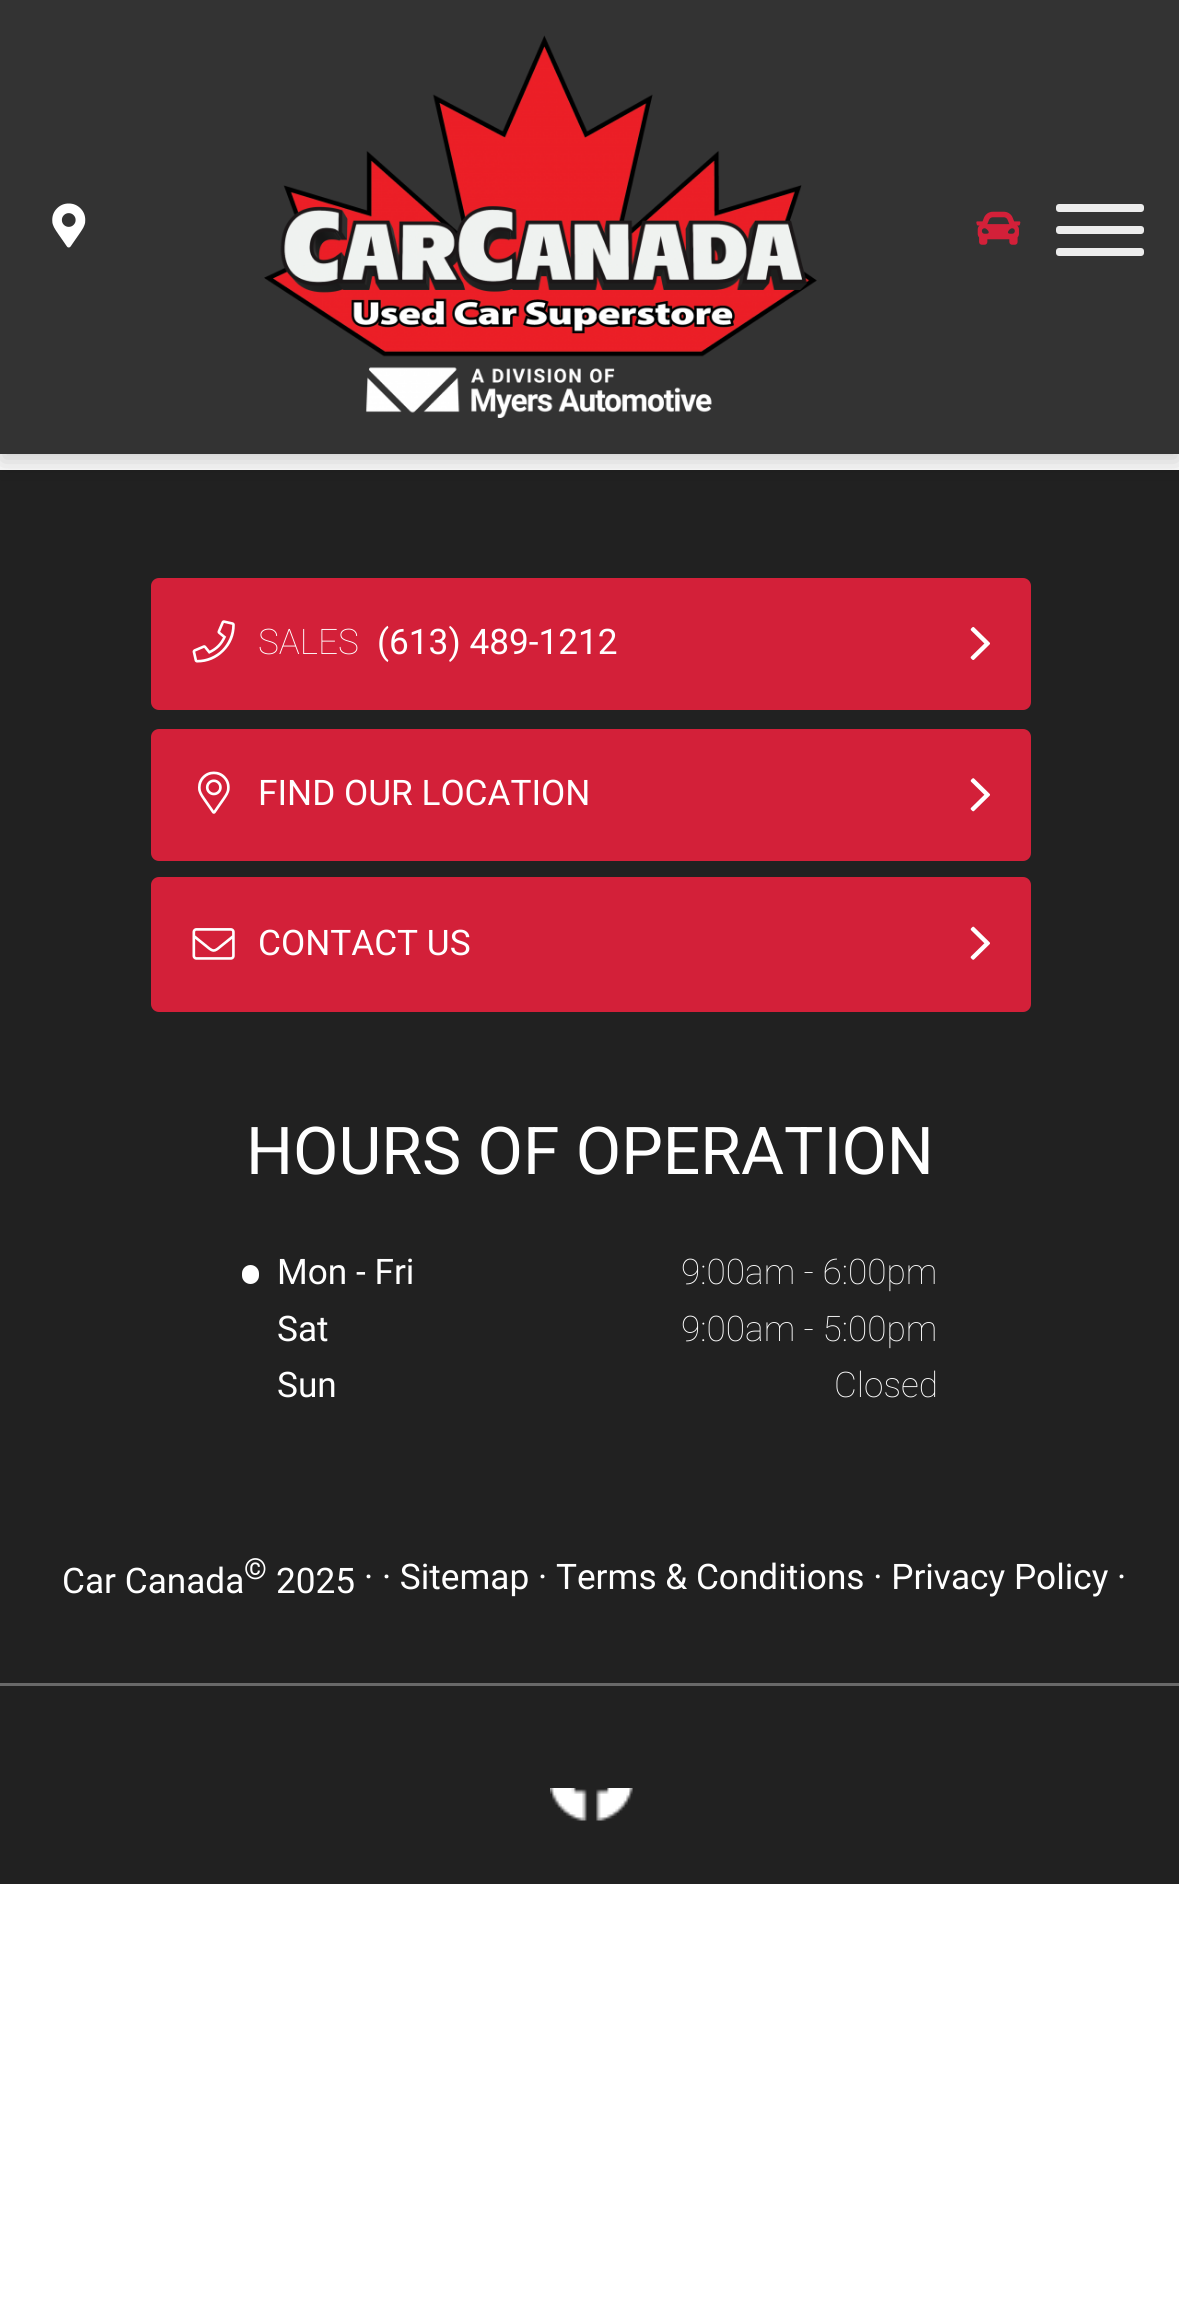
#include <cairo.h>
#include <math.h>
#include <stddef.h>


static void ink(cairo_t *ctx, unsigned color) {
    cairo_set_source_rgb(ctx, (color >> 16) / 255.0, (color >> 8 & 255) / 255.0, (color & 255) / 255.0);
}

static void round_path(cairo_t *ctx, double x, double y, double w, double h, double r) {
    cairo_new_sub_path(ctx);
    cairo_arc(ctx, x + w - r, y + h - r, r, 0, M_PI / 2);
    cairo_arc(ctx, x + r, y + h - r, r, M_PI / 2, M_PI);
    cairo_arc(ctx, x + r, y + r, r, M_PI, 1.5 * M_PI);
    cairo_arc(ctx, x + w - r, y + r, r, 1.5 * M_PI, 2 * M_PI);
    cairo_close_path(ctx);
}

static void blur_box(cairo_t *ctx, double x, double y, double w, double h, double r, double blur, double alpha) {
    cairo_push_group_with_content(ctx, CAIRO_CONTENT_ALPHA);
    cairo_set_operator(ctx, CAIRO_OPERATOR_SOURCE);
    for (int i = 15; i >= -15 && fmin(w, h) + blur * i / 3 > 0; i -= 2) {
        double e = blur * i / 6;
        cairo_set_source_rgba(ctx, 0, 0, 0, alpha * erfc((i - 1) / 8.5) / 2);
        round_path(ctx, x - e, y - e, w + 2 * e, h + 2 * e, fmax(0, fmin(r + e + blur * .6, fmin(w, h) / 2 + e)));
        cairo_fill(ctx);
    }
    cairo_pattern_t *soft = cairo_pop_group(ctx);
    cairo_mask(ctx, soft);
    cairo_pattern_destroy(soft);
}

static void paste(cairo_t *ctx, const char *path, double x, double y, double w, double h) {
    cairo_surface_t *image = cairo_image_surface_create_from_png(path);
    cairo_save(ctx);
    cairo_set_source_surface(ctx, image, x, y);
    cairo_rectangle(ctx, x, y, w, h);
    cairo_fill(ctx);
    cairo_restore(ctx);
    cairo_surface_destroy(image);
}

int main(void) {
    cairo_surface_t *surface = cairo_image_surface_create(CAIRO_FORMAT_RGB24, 1179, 2317);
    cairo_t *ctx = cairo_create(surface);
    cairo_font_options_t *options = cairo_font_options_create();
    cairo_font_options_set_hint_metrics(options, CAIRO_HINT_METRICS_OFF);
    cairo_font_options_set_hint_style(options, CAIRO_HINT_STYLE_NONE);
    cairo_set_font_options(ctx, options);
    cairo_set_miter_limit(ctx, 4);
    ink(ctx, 0xFFFFFF);
    cairo_paint(ctx);
    ink(ctx, 0x212121);
    cairo_rectangle(ctx, 0, 470, 1179, 1213);
    cairo_fill(ctx);
    ink(ctx, 0x000000);
    blur_box(ctx, 0, 8, 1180, 454, 0, 13, 0.2);
    ink(ctx, 0x333333);
    cairo_rectangle(ctx, 0, 0, 1179, 454);
    cairo_fill(ctx);
    paste(ctx, "media/1.png", 52, 203, 34, 45);
    paste(ctx, "media/2.png", 264, 35, 553, 383);
    paste(ctx, "media/3.png", 976, 211, 45, 34);
    ink(ctx, 0xECECEC);
    round_path(ctx, 1056, 226, 88, 8, 3);
    cairo_fill(ctx);
    round_path(ctx, 1056, 204, 88, 8, 3);
    cairo_fill(ctx);
    round_path(ctx, 1056, 248, 88, 8, 3);
    cairo_fill(ctx);
    ink(ctx, 0xD32039);
    round_path(ctx, 151, 578, 880, 132, 8);
    cairo_fill(ctx);
    paste(ctx, "media/4.png", 192, 620, 43, 43);
    cairo_select_font_face(ctx, "Roboto Thin", CAIRO_FONT_SLANT_NORMAL, CAIRO_FONT_WEIGHT_NORMAL);
    cairo_set_font_size(ctx, 35.2);
    ink(ctx, 0xFFFFFF);
    cairo_move_to(ctx, 258, 654);
    cairo_show_text(ctx, "SALES");
    cairo_select_font_face(ctx, "Roboto", CAIRO_FONT_SLANT_NORMAL, CAIRO_FONT_WEIGHT_NORMAL);
    cairo_move_to(ctx, 377, 654);
    cairo_show_text(ctx, "(613) 489-1212");
    paste(ctx, "media/5.png", 970, 627, 20, 33);
    ink(ctx, 0xD32039);
    round_path(ctx, 151, 729, 880, 132, 8);
    cairo_fill(ctx);
    paste(ctx, "media/6.png", 198, 771, 32, 43);
    ink(ctx, 0xFFFFFF);
    cairo_move_to(ctx, 258, 805);
    cairo_show_text(ctx, "FIND OUR LOCATION");
    paste(ctx, "media/7.png", 970, 778, 20, 34);
    ink(ctx, 0xD32039);
    round_path(ctx, 151, 877, 880, 135, 8);
    cairo_fill(ctx);
    paste(ctx, "media/8.png", 192, 928, 43, 32);
    ink(ctx, 0xFFFFFF);
    cairo_move_to(ctx, 258, 955);
    cairo_show_text(ctx, "CONTACT US");
    paste(ctx, "media/9.png", 970, 926, 20, 34);
    cairo_set_font_size(ctx, 66);
    cairo_move_to(ctx, 246, 1174);
    cairo_show_text(ctx, "HOURS OF OPERATION");
    round_path(ctx, 242, 1265, 17, 19, 8.5);
    cairo_fill(ctx);
    cairo_set_font_size(ctx, 35.2);
    cairo_move_to(ctx, 277, 1284);
    cairo_show_text(ctx, "Mon - Fri");
    cairo_select_font_face(ctx, "Roboto Thin", CAIRO_FONT_SLANT_NORMAL, CAIRO_FONT_WEIGHT_NORMAL);
    cairo_move_to(ctx, 681, 1284);
    cairo_show_text(ctx, "9:00am - 6:00pm");
    cairo_select_font_face(ctx, "Roboto", CAIRO_FONT_SLANT_NORMAL, CAIRO_FONT_WEIGHT_NORMAL);
    cairo_move_to(ctx, 277, 1341);
    cairo_show_text(ctx, "Sat");
    cairo_select_font_face(ctx, "Roboto Thin", CAIRO_FONT_SLANT_NORMAL, CAIRO_FONT_WEIGHT_NORMAL);
    cairo_move_to(ctx, 681, 1341);
    cairo_show_text(ctx, "9:00am - 5:00pm");
    cairo_select_font_face(ctx, "Roboto", CAIRO_FONT_SLANT_NORMAL, CAIRO_FONT_WEIGHT_NORMAL);
    cairo_move_to(ctx, 277, 1397);
    cairo_show_text(ctx, "Sun");
    cairo_select_font_face(ctx, "Roboto Thin", CAIRO_FONT_SLANT_NORMAL, CAIRO_FONT_WEIGHT_NORMAL);
    cairo_move_to(ctx, 834, 1397);
    cairo_show_text(ctx, "Closed");
    ink(ctx, 0x696969);
    cairo_rectangle(ctx, 0, 1683, 1179, 3);
    cairo_fill(ctx);
    cairo_select_font_face(ctx, "Roboto", CAIRO_FONT_SLANT_NORMAL, CAIRO_FONT_WEIGHT_NORMAL);
    ink(ctx, 0xFFFFFF);
    cairo_move_to(ctx, 62, 1593);
    cairo_show_text(ctx, "Car Canada");
    cairo_set_font_size(ctx, 29);
    cairo_move_to(ctx, 244, 1579);
    cairo_show_text(ctx, "©");
    cairo_set_font_size(ctx, 35.2);
    cairo_move_to(ctx, 276, 1593);
    cairo_show_text(ctx, "2025");
    cairo_move_to(ctx, 364, 1589);
    cairo_show_text(ctx, "· · Sitemap · Terms & Conditions · Privacy Policy ·");
    ink(ctx, 0x212121);
    cairo_rectangle(ctx, 0, 1686, 1179, 198);
    cairo_fill(ctx);
    paste(ctx, "media/10.png", 550, 1788, 83, 33);
    cairo_surface_write_to_png(surface, "image.png");
    cairo_font_options_destroy(options);
    cairo_destroy(ctx);
    cairo_surface_destroy(surface);
    return 0;
}
